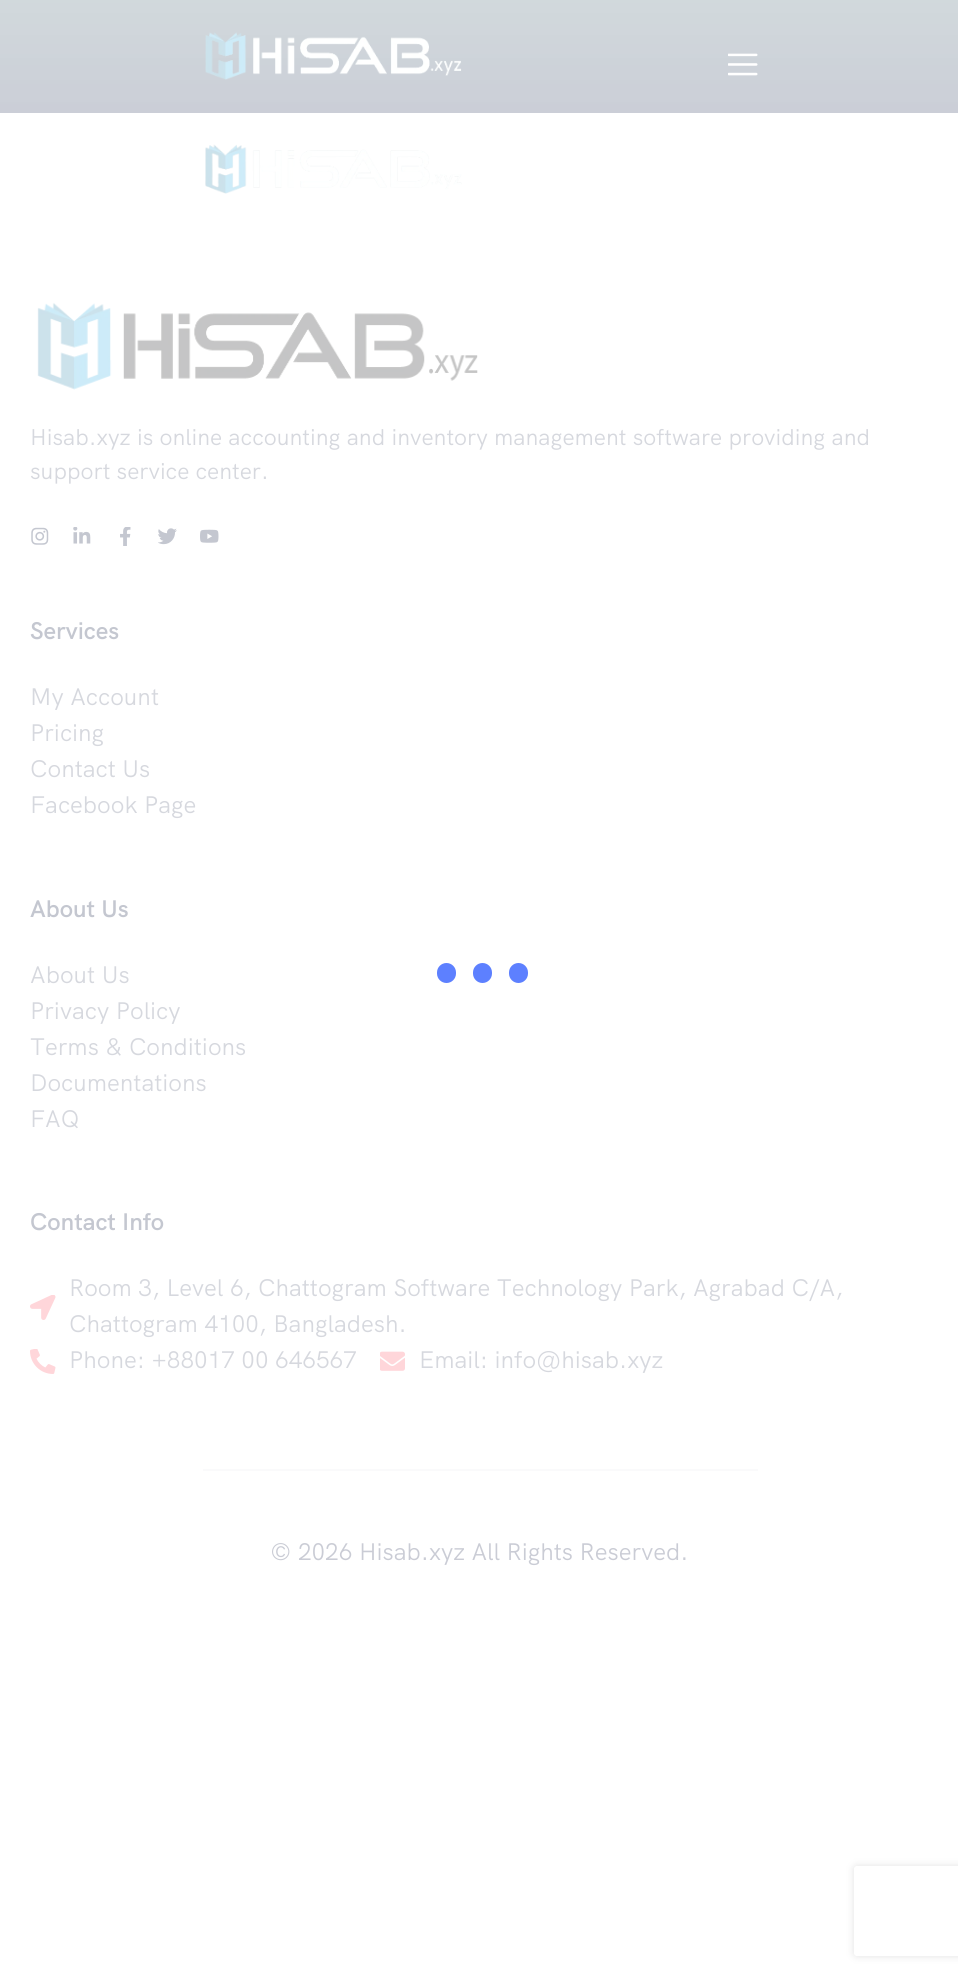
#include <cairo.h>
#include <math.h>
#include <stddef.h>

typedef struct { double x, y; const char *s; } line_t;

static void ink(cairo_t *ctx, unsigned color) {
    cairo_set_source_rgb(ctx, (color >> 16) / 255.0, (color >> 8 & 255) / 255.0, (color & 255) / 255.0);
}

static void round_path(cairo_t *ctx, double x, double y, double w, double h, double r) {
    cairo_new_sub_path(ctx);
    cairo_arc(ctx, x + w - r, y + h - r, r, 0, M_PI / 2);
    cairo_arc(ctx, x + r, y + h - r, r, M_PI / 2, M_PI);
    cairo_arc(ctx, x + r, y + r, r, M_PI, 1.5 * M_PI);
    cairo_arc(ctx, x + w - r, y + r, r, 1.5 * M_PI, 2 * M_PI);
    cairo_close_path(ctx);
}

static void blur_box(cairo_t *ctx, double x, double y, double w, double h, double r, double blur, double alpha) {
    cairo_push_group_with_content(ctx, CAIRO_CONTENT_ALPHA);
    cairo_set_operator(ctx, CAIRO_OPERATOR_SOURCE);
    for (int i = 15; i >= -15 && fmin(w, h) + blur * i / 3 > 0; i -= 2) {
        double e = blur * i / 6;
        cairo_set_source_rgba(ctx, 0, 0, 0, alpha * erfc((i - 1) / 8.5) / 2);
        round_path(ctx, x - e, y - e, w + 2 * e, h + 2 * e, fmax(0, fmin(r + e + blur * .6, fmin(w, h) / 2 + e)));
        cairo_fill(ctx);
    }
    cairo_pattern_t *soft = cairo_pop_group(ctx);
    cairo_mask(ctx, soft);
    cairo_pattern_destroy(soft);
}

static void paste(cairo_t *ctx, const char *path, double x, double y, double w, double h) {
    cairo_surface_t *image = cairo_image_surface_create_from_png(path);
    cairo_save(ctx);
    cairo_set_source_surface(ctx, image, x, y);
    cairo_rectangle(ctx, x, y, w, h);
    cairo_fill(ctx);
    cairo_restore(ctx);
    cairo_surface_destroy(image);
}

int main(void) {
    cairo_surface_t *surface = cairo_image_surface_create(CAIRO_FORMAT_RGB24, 958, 1977);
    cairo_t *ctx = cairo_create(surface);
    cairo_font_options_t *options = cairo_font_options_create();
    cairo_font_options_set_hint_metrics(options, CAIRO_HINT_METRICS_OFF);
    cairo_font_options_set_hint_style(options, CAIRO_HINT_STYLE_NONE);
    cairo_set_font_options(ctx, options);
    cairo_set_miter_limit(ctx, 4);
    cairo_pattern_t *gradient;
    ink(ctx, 0xFFFFFF);
    cairo_paint(ctx);
    gradient = cairo_pattern_create_linear(479, 0, 479, 113);
    cairo_pattern_add_color_stop_rgba(gradient, 0, 0.816, 0.847, 0.859, 0.98);
    cairo_pattern_add_color_stop_rgba(gradient, 1, 0.796, 0.808, 0.843, 1);
    cairo_set_source(ctx, gradient);
    cairo_pattern_destroy(gradient);
    cairo_rectangle(ctx, 0, 0, 958, 113);
    cairo_fill(ctx);
    paste(ctx, "media/1.png", 205, 32, 257, 48);
    paste(ctx, "media/2.png", 728, 53, 30, 23);
    paste(ctx, "media/3.png", 205, 144, 257, 50);
    paste(ctx, "media/4.png", 37, 302, 441, 88);
    cairo_select_font_face(ctx, "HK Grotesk", CAIRO_FONT_SLANT_NORMAL, CAIRO_FONT_WEIGHT_NORMAL);
    cairo_set_font_size(ctx, 22.8);
    ink(ctx, 0xD6D8DE);
    cairo_move_to(ctx, 30, 445);
    cairo_show_text(ctx, "Hisab.xyz is online accounting and inventory management software providing and");
    cairo_move_to(ctx, 30, 479);
    cairo_show_text(ctx, "support service center.");
    paste(ctx, "media/5.png", 31, 527, 18, 18);
    paste(ctx, "media/6.png", 73, 527, 18, 17);
    paste(ctx, "media/7.png", 120, 527, 11, 19);
    paste(ctx, "media/8.png", 158, 528, 19, 17);
    paste(ctx, "media/9.png", 200, 529, 19, 14);
    cairo_select_font_face(ctx, "HK Grotesk SemiBold", CAIRO_FONT_SLANT_NORMAL, CAIRO_FONT_WEIGHT_NORMAL);
    cairo_set_font_size(ctx, 24);
    ink(ctx, 0xC4C7D0);
    cairo_move_to(ctx, 30, 639);
    cairo_show_text(ctx, "Services");
    cairo_select_font_face(ctx, "HK Grotesk", CAIRO_FONT_SLANT_NORMAL, CAIRO_FONT_WEIGHT_NORMAL);
    ink(ctx, 0xD6D8DE);
    {
        static const line_t items[] = {
            {30, 705, "My Account"},
            {30, 741, "Pricing"},
            {30, 777, "Contact Us"},
            {30, 813, "Facebook Page"},
        };
        for (size_t i = 0; i < sizeof items / sizeof *items; i++) {
            cairo_move_to(ctx, items[i].x, items[i].y);
            cairo_show_text(ctx, items[i].s);
        }
    }
    cairo_select_font_face(ctx, "HK Grotesk SemiBold", CAIRO_FONT_SLANT_NORMAL, CAIRO_FONT_WEIGHT_NORMAL);
    ink(ctx, 0xC4C7D0);
    cairo_move_to(ctx, 30, 917);
    cairo_show_text(ctx, "About Us");
    cairo_select_font_face(ctx, "HK Grotesk", CAIRO_FONT_SLANT_NORMAL, CAIRO_FONT_WEIGHT_NORMAL);
    ink(ctx, 0xD6D8DE);
    {
        static const line_t items[] = {
            {30, 983, "About Us"},
            {30, 1019, "Privacy Policy"},
            {30, 1055, "Terms & Conditions"},
            {30, 1091, "Documentations"},
            {30, 1127, "FAQ"},
        };
        for (size_t i = 0; i < sizeof items / sizeof *items; i++) {
            cairo_move_to(ctx, items[i].x, items[i].y);
            cairo_show_text(ctx, items[i].s);
        }
    }
    cairo_select_font_face(ctx, "HK Grotesk SemiBold", CAIRO_FONT_SLANT_NORMAL, CAIRO_FONT_WEIGHT_NORMAL);
    ink(ctx, 0xC4C7D0);
    cairo_move_to(ctx, 30, 1230);
    cairo_show_text(ctx, "Contact Info");
    paste(ctx, "media/10.png", 30, 1295, 26, 25);
    cairo_select_font_face(ctx, "HK Grotesk", CAIRO_FONT_SLANT_NORMAL, CAIRO_FONT_WEIGHT_NORMAL);
    ink(ctx, 0xD6D8DE);
    cairo_move_to(ctx, 69, 1296);
    cairo_show_text(ctx, "Room 3, Level 6, Chattogram Software Technology Park, Agrabad C/A,");
    cairo_move_to(ctx, 69, 1332);
    cairo_show_text(ctx, "Chattogram 4100, Bangladesh.");
    paste(ctx, "media/11.png", 30, 1349, 26, 25);
    cairo_move_to(ctx, 69, 1368);
    cairo_show_text(ctx, "Phone: +88017 00 646567");
    paste(ctx, "media/12.png", 380, 1351, 25, 20);
    cairo_move_to(ctx, 419, 1368);
    cairo_show_text(ctx, "Email: info@hisab.xyz");
    ink(ctx, 0xFAFAFB);
    cairo_rectangle(ctx, 203, 1469, 555, 2);
    cairo_fill(ctx);
    ink(ctx, 0xCACCD5);
    cairo_move_to(ctx, 270, 1560);
    cairo_show_text(ctx, "© 2026 Hisab.xyz All Rights Reserved.");
    ink(ctx, 0x5D80FF);
    round_path(ctx, 437, 963, 19, 20, 9.5);
    cairo_fill(ctx);
    round_path(ctx, 473, 963, 19, 20, 9.5);
    cairo_fill(ctx);
    round_path(ctx, 509, 963, 19, 20, 9.5);
    cairo_fill(ctx);
    cairo_save(ctx);
    cairo_set_fill_rule(ctx, CAIRO_FILL_RULE_EVEN_ODD);
    cairo_new_path(ctx);
    cairo_move_to(ctx, 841, 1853);
    cairo_line_to(ctx, 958, 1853);
    cairo_line_to(ctx, 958, 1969);
    cairo_line_to(ctx, 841, 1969);
    cairo_close_path(ctx);
    cairo_move_to(ctx, 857, 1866);
    cairo_line_to(ctx, 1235, 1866);
    cairo_curve_to(ctx, 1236.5, 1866, 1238, 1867.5, 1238, 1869);
    cairo_line_to(ctx, 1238, 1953);
    cairo_curve_to(ctx, 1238, 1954.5, 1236.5, 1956, 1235, 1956);
    cairo_line_to(ctx, 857, 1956);
    cairo_curve_to(ctx, 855.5, 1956, 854, 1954.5, 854, 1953);
    cairo_line_to(ctx, 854, 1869);
    cairo_curve_to(ctx, 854, 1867.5, 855.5, 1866, 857, 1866);
    cairo_close_path(ctx);
    cairo_clip(ctx);
    ink(ctx, 0xE2E2E2);
    blur_box(ctx, 854, 1866, 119, 90, 3, 4, 1);
    cairo_restore(ctx);
    cairo_surface_write_to_png(surface, "image.png");
    cairo_font_options_destroy(options);
    cairo_destroy(ctx);
    cairo_surface_destroy(surface);
    return 0;
}
